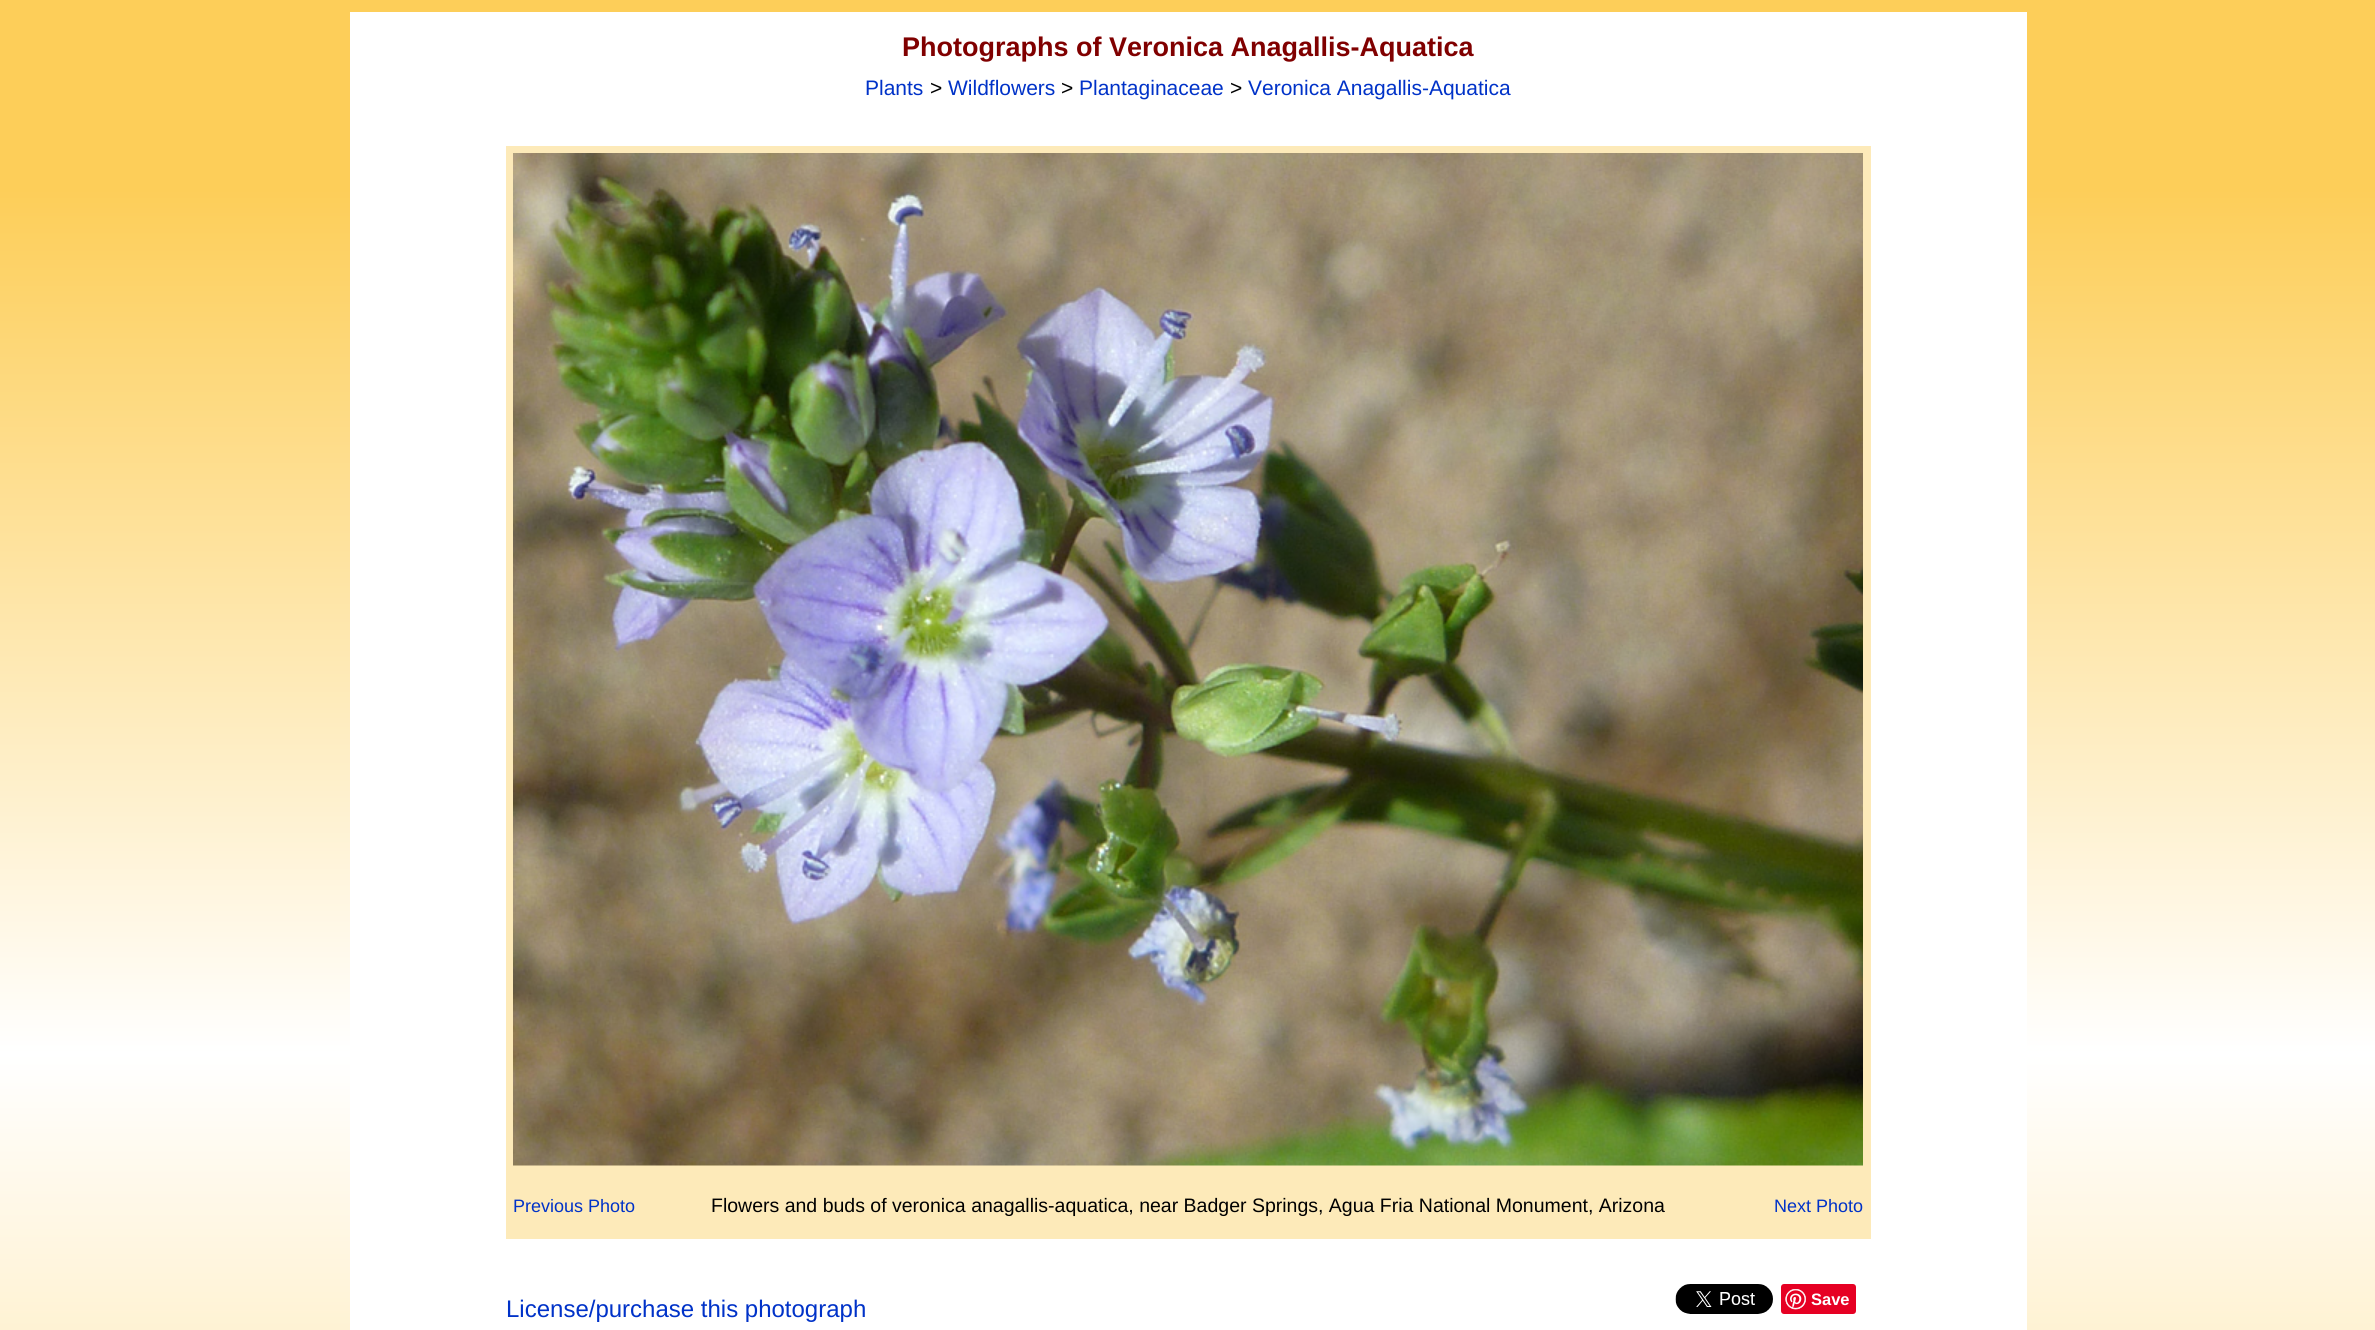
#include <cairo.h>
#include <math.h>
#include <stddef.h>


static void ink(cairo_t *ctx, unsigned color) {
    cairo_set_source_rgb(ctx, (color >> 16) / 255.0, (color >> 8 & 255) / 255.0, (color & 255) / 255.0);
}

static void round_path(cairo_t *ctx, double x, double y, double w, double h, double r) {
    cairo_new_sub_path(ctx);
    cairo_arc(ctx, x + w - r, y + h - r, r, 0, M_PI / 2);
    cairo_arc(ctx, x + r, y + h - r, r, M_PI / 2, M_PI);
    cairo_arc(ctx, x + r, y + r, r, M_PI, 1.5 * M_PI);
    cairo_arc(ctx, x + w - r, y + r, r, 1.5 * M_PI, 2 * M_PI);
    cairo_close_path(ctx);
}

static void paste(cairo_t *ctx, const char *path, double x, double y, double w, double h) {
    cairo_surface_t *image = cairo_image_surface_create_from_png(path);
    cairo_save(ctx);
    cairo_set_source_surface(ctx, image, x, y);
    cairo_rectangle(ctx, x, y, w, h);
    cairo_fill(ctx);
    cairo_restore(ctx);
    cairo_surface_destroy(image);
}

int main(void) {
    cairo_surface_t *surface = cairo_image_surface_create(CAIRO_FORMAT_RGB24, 2375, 1330);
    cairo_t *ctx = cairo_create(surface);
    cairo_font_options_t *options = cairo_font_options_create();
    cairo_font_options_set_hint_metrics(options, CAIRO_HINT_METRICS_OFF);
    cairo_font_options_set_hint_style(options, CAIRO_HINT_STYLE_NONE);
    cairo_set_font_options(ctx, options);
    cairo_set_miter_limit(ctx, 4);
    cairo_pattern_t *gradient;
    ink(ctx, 0xFFFFFF);
    cairo_paint(ctx);
    gradient = cairo_pattern_create_linear(1188, 0, 1188, 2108);
    cairo_pattern_add_color_stop_rgba(gradient, 0.09, 0.992, 0.808, 0.349, 1);
    cairo_pattern_add_color_stop_rgba(gradient, 0.5, 1, 1, 1, 1);
    cairo_pattern_add_color_stop_rgba(gradient, 1, 0.992, 0.808, 0.349, 1);
    cairo_set_source(ctx, gradient);
    cairo_pattern_destroy(gradient);
    cairo_rectangle(ctx, 0, 0, 2375, 1330);
    cairo_fill(ctx);
    ink(ctx, 0xFFFFFF);
    cairo_rectangle(ctx, 350, 12, 1677, 1318);
    cairo_fill(ctx);
    cairo_select_font_face(ctx, "Liberation Sans", CAIRO_FONT_SLANT_NORMAL, CAIRO_FONT_WEIGHT_BOLD);
    cairo_set_font_size(ctx, 27);
    ink(ctx, 0x800000);
    cairo_move_to(ctx, 902, 56);
    cairo_show_text(ctx, "Photographs of Veronica Anagallis-Aquatica");
    cairo_select_font_face(ctx, "Liberation Sans", CAIRO_FONT_SLANT_NORMAL, CAIRO_FONT_WEIGHT_NORMAL);
    cairo_set_font_size(ctx, 21);
    ink(ctx, 0x0032C8);
    cairo_move_to(ctx, 865, 95);
    cairo_show_text(ctx, "Plants");
    ink(ctx, 0x000000);
    cairo_move_to(ctx, 930, 95);
    cairo_show_text(ctx, ">");
    ink(ctx, 0x0032C8);
    cairo_move_to(ctx, 948, 95);
    cairo_show_text(ctx, "Wildflowers");
    ink(ctx, 0x000000);
    cairo_move_to(ctx, 1061, 95);
    cairo_show_text(ctx, ">");
    ink(ctx, 0x0032C8);
    cairo_move_to(ctx, 1079, 95);
    cairo_show_text(ctx, "Plantaginaceae");
    ink(ctx, 0x000000);
    cairo_move_to(ctx, 1230, 95);
    cairo_show_text(ctx, ">");
    ink(ctx, 0x0032C8);
    cairo_move_to(ctx, 1248, 95);
    cairo_show_text(ctx, "Veronica Anagallis-Aquatica");
    ink(ctx, 0xFDEAB9);
    cairo_rectangle(ctx, 506, 146, 1365, 1093);
    cairo_fill(ctx);
    paste(ctx, "media/1.png", 513, 153, 1350, 1013);
    cairo_set_font_size(ctx, 18);
    ink(ctx, 0x0032C8);
    cairo_move_to(ctx, 513, 1212);
    cairo_show_text(ctx, "Previous Photo");
    cairo_set_font_size(ctx, 19.5);
    ink(ctx, 0x000000);
    cairo_move_to(ctx, 711, 1212);
    cairo_show_text(ctx, "Flowers and buds of veronica anagallis-aquatica, near Badger Springs, Agua Fria National Monument, Arizona");
    cairo_set_font_size(ctx, 18);
    ink(ctx, 0x0032C8);
    cairo_move_to(ctx, 1774, 1212);
    cairo_show_text(ctx, "Next Photo");
    cairo_set_font_size(ctx, 24);
    cairo_move_to(ctx, 506, 1317);
    cairo_show_text(ctx, "License/purchase this photograph");
    paste(ctx, "media/2.png", 1675, 1284, 98, 30);
    ink(ctx, 0xE60023);
    round_path(ctx, 1781, 1284, 75, 30, 3);
    cairo_fill(ctx);
    paste(ctx, "media/3.png", 1785, 1289, 21, 21);
    cairo_select_font_face(ctx, "Liberation Sans", CAIRO_FONT_SLANT_NORMAL, CAIRO_FONT_WEIGHT_BOLD);
    cairo_set_font_size(ctx, 16.5);
    ink(ctx, 0xFFFFFF);
    cairo_move_to(ctx, 1811, 1305);
    cairo_show_text(ctx, "Save");
    cairo_surface_write_to_png(surface, "image.png");
    cairo_font_options_destroy(options);
    cairo_destroy(ctx);
    cairo_surface_destroy(surface);
    return 0;
}
